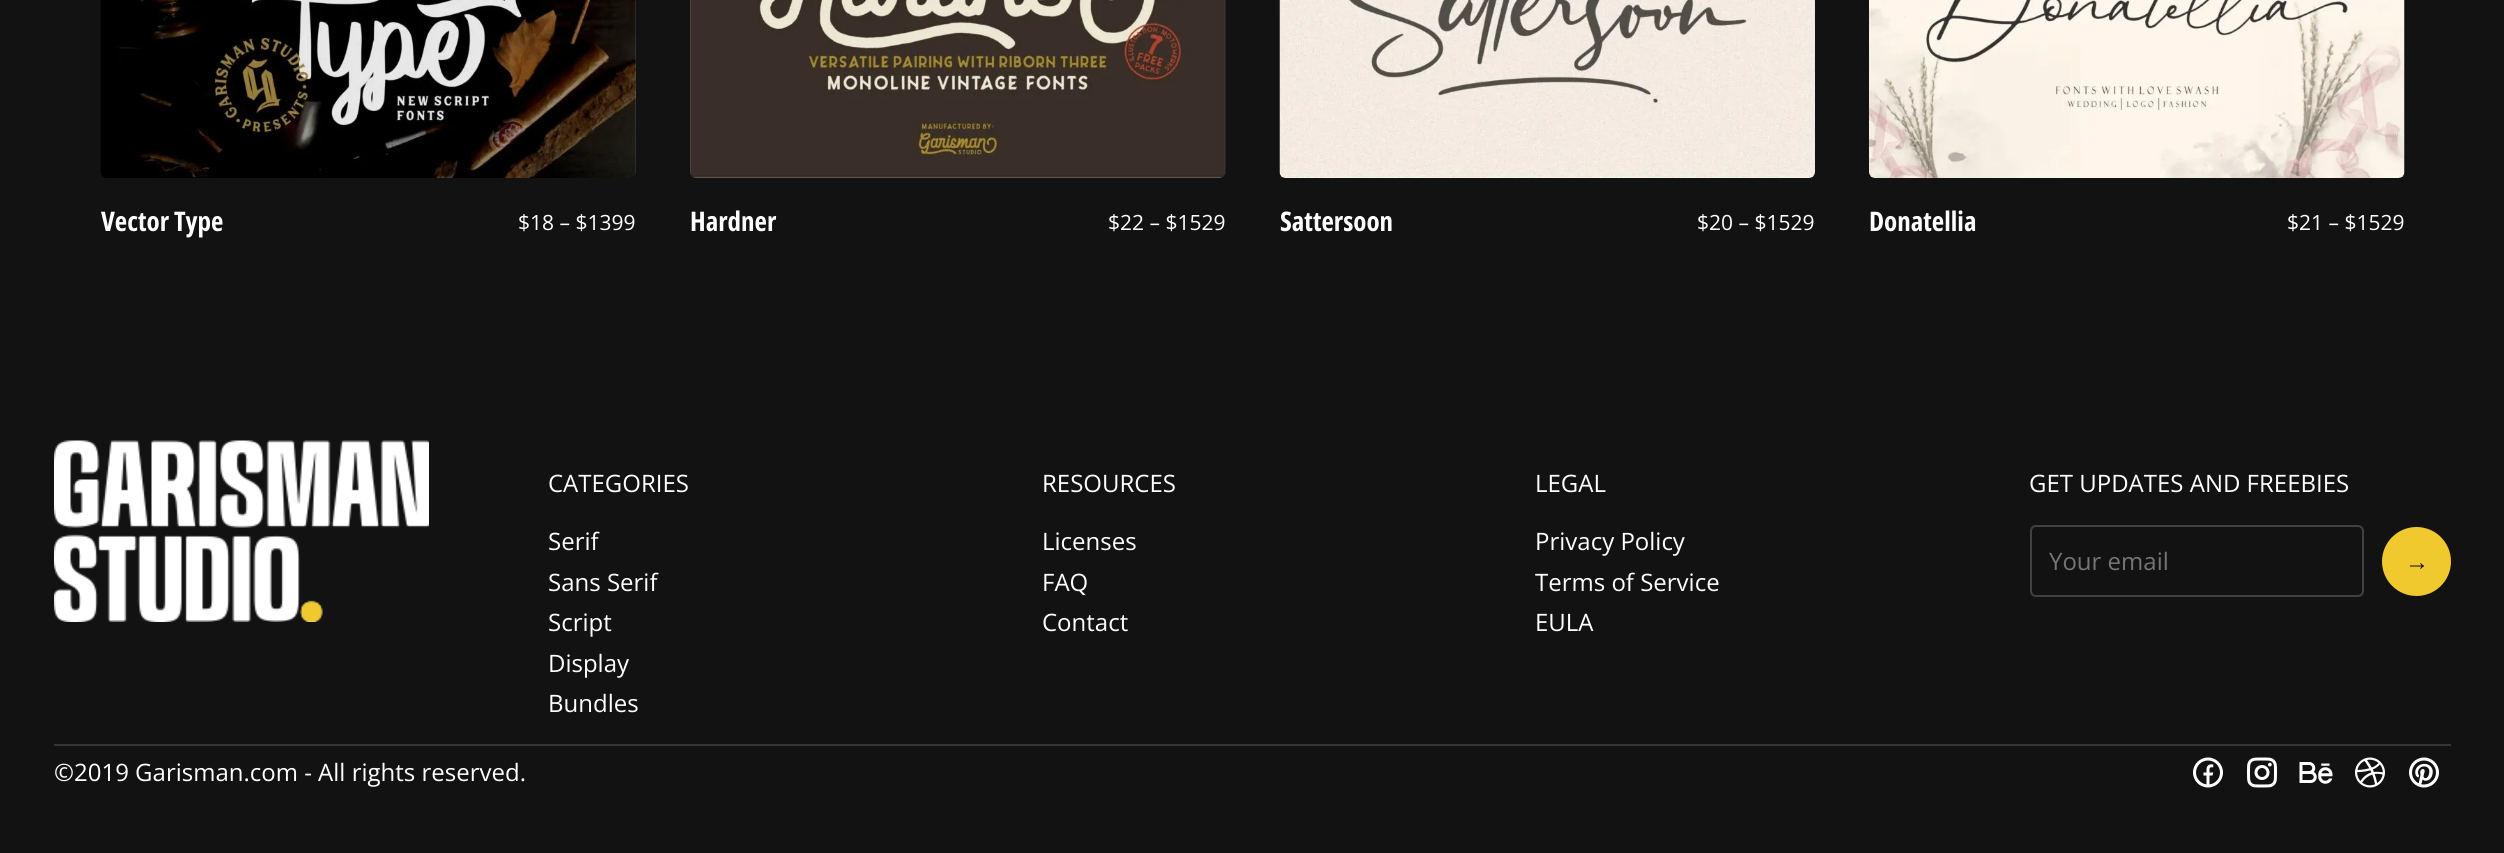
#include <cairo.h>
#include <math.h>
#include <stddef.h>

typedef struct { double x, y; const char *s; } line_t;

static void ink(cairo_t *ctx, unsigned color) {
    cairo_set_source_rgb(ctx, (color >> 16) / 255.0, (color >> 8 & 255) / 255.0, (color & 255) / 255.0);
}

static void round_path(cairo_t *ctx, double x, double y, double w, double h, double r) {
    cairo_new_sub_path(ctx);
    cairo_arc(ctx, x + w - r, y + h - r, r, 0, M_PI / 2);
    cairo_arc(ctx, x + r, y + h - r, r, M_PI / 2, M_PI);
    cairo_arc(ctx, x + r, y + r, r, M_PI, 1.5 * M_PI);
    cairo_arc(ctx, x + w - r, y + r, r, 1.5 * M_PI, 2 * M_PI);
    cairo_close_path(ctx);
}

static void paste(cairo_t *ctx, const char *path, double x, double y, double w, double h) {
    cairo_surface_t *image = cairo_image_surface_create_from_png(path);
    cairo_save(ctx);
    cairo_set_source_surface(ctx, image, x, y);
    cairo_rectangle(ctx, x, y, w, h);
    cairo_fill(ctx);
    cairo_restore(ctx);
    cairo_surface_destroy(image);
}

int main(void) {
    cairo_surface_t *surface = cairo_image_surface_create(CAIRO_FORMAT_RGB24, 2504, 853);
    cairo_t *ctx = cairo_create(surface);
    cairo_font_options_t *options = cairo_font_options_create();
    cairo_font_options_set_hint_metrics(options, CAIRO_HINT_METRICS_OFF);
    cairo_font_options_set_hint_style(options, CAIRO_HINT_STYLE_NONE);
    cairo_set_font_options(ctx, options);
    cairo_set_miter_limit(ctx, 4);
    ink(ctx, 0x121212);
    cairo_paint(ctx);
    paste(ctx, "media/1.png", 100, 0, 536, 178);
    cairo_save(ctx);
    cairo_rectangle(ctx, 101, 206, 309, 33);
    cairo_clip(ctx);
    cairo_select_font_face(ctx, "Open Sans Condensed", CAIRO_FONT_SLANT_NORMAL, CAIRO_FONT_WEIGHT_BOLD);
    cairo_set_font_size(ctx, 27);
    ink(ctx, 0xFFFFFF);
    cairo_move_to(ctx, 101, 231);
    cairo_show_text(ctx, "Vector Type");
    cairo_restore(ctx);
    cairo_select_font_face(ctx, "Open Sans", CAIRO_FONT_SLANT_NORMAL, CAIRO_FONT_WEIGHT_NORMAL);
    cairo_set_font_size(ctx, 21);
    ink(ctx, 0xFFFFFF);
    cairo_move_to(ctx, 518, 230);
    cairo_show_text(ctx, "$18 – $1399");
    paste(ctx, "media/2.png", 690, 0, 536, 178);
    cairo_select_font_face(ctx, "Open Sans Condensed", CAIRO_FONT_SLANT_NORMAL, CAIRO_FONT_WEIGHT_BOLD);
    cairo_set_font_size(ctx, 27);
    cairo_move_to(ctx, 690, 231);
    cairo_show_text(ctx, "Hardner");
    cairo_select_font_face(ctx, "Open Sans", CAIRO_FONT_SLANT_NORMAL, CAIRO_FONT_WEIGHT_NORMAL);
    cairo_set_font_size(ctx, 21);
    cairo_move_to(ctx, 1108, 230);
    cairo_show_text(ctx, "$22 – $1529");
    paste(ctx, "media/3.png", 1279, 0, 536, 178);
    cairo_select_font_face(ctx, "Open Sans Condensed", CAIRO_FONT_SLANT_NORMAL, CAIRO_FONT_WEIGHT_BOLD);
    cairo_set_font_size(ctx, 27);
    cairo_move_to(ctx, 1280, 231);
    cairo_show_text(ctx, "Sattersoon");
    cairo_select_font_face(ctx, "Open Sans", CAIRO_FONT_SLANT_NORMAL, CAIRO_FONT_WEIGHT_NORMAL);
    cairo_set_font_size(ctx, 21);
    cairo_move_to(ctx, 1697, 230);
    cairo_show_text(ctx, "$20 – $1529");
    paste(ctx, "media/4.png", 1869, 0, 536, 178);
    cairo_select_font_face(ctx, "Open Sans Condensed", CAIRO_FONT_SLANT_NORMAL, CAIRO_FONT_WEIGHT_BOLD);
    cairo_set_font_size(ctx, 27);
    cairo_move_to(ctx, 1869, 231);
    cairo_show_text(ctx, "Donatellia");
    cairo_select_font_face(ctx, "Open Sans", CAIRO_FONT_SLANT_NORMAL, CAIRO_FONT_WEIGHT_NORMAL);
    cairo_set_font_size(ctx, 21);
    cairo_move_to(ctx, 2287, 230);
    cairo_show_text(ctx, "$21 – $1529");
    ink(ctx, 0x353535);
    cairo_rectangle(ctx, 54, 744, 2397, 2);
    cairo_fill(ctx);
    paste(ctx, "media/5.png", 54, 440, 375, 182);
    cairo_set_font_size(ctx, 24);
    ink(ctx, 0xFFFFFF);
    {
        static const line_t items[] = {
            {548, 492, "CATEGORIES"},
            {548, 550, "Serif"},
            {548, 591, "Sans Serif"},
            {548, 631, "Script"},
            {548, 672, "Display"},
            {548, 712, "Bundles"},
            {1042, 492, "RESOURCES"},
            {1042, 550, "Licenses"},
            {1042, 591, "FAQ"},
            {1042, 631, "Contact"},
            {1535, 492, "LEGAL"},
            {1535, 550, "Privacy Policy"},
            {1535, 591, "Terms of Service"},
            {1535, 631, "EULA"},
            {2029, 492, "GET UPDATES AND FREEBIES"},
        };
        for (size_t i = 0; i < sizeof items / sizeof *items; i++) {
            cairo_move_to(ctx, items[i].x, items[i].y);
            cairo_show_text(ctx, items[i].s);
        }
    }
    round_path(ctx, 2031, 526, 332, 70, 5);
    ink(ctx, 0x414141);
    cairo_stroke(ctx);
    ink(ctx, 0x757575);
    cairo_move_to(ctx, 2049, 570);
    cairo_show_text(ctx, "Your email");
    ink(ctx, 0xEFC92E);
    cairo_new_path(ctx);
    cairo_arc(ctx, 2416.5, 561.5, 34.5, 0, 2 * M_PI);
    cairo_fill(ctx);
    cairo_select_font_face(ctx, "Liberation Serif", CAIRO_FONT_SLANT_NORMAL, CAIRO_FONT_WEIGHT_NORMAL);
    ink(ctx, 0x121212);
    cairo_move_to(ctx, 2405, 570);
    cairo_show_text(ctx, "→");
    cairo_select_font_face(ctx, "Open Sans", CAIRO_FONT_SLANT_NORMAL, CAIRO_FONT_WEIGHT_NORMAL);
    ink(ctx, 0xFFFFFF);
    cairo_move_to(ctx, 54, 781);
    cairo_show_text(ctx, "©2019 Garisman.com - All rights reserved.");
    paste(ctx, "media/6.png", 2193, 757, 30, 31);
    paste(ctx, "media/7.png", 2247, 757, 30, 31);
    paste(ctx, "media/8.png", 2299, 762, 34, 22);
    paste(ctx, "media/9.png", 2355, 757, 30, 31);
    paste(ctx, "media/10.png", 2409, 757, 30, 31);
    cairo_surface_write_to_png(surface, "image.png");
    cairo_font_options_destroy(options);
    cairo_destroy(ctx);
    cairo_surface_destroy(surface);
    return 0;
}
